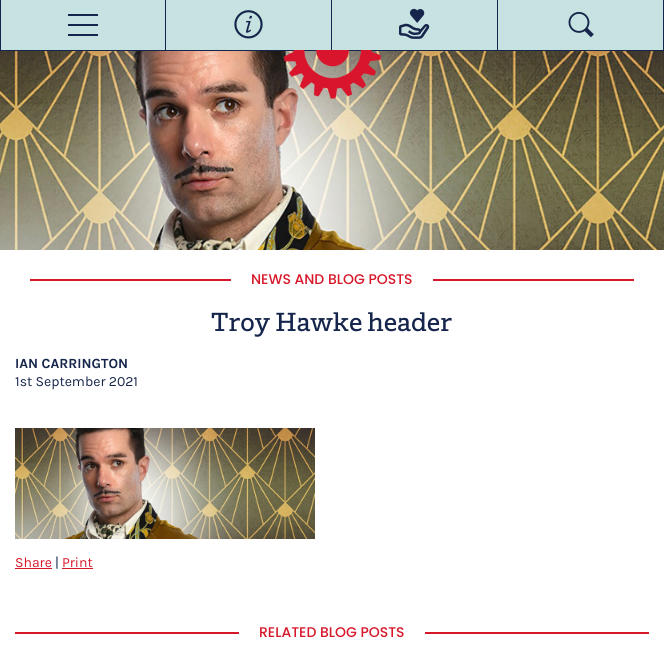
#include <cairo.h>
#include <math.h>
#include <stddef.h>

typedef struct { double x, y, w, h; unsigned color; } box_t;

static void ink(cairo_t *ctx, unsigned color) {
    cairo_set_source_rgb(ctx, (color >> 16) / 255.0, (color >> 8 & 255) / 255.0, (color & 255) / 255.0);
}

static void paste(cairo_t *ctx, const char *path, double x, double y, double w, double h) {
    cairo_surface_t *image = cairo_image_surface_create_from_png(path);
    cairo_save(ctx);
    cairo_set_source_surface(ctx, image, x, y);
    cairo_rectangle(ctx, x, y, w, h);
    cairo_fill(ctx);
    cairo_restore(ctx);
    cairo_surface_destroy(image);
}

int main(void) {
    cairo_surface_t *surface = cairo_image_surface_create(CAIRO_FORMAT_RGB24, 664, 659);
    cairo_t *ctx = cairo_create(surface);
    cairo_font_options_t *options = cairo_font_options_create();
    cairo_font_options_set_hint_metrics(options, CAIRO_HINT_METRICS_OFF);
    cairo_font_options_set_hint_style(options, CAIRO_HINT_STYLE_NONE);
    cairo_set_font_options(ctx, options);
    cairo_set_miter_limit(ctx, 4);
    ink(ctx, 0xFFFFFF);
    cairo_paint(ctx);
    {
        static const box_t items[] = {
            {1, 0, 662, 50, 0xC7E3E1},
            {0, 50, 664, 1, 0x16254C},
            {165, 0, 1, 50, 0x16254C},
            {0, 0, 1, 50, 0x16254C},
            {68, 14, 30, 2, 0x16254C},
            {68, 24, 30, 2, 0x16254C},
            {68, 34, 30, 2, 0x16254C},
            {331, 0, 1, 50, 0x16254C},
        };
        for (size_t i = 0; i < sizeof items / sizeof *items; i++) {
            ink(ctx, items[i].color);
            cairo_rectangle(ctx, items[i].x, items[i].y, items[i].w, items[i].h);
            cairo_fill(ctx);
        }
    }
    paste(ctx, "media/1.png", 234, 10, 29, 29);
    cairo_rectangle(ctx, 497, 0, 1, 50);
    cairo_fill(ctx);
    paste(ctx, "media/2.png", 399, 8, 31, 31);
    cairo_rectangle(ctx, 663, 0, 1, 50);
    cairo_fill(ctx);
    paste(ctx, "media/3.png", 568, 11, 26, 27);
    paste(ctx, "media/5.png", 0, 51, 664, 199);
    paste(ctx, "media/4.png", 283, 50, 98, 49);
    ink(ctx, 0xD7182A);
    cairo_rectangle(ctx, 30, 279, 201, 2);
    cairo_fill(ctx);
    cairo_select_font_face(ctx, "Poppins Medium", CAIRO_FONT_SLANT_NORMAL, CAIRO_FONT_WEIGHT_NORMAL);
    cairo_set_font_size(ctx, 14);
    cairo_move_to(ctx, 251, 284);
    cairo_show_text(ctx, "NEWS AND BLOG POSTS");
    cairo_rectangle(ctx, 433, 279, 201, 2);
    cairo_fill(ctx);
    cairo_select_font_face(ctx, "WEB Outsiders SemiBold", CAIRO_FONT_SLANT_NORMAL, CAIRO_FONT_WEIGHT_NORMAL);
    cairo_set_font_size(ctx, 26);
    ink(ctx, 0x16254C);
    cairo_move_to(ctx, 211, 331);
    cairo_show_text(ctx, "Troy Hawke header");
    cairo_select_font_face(ctx, "Karla", CAIRO_FONT_SLANT_NORMAL, CAIRO_FONT_WEIGHT_BOLD);
    cairo_set_font_size(ctx, 14);
    cairo_move_to(ctx, 15, 368);
    cairo_show_text(ctx, "IAN CARRINGTON");
    cairo_select_font_face(ctx, "Karla", CAIRO_FONT_SLANT_NORMAL, CAIRO_FONT_WEIGHT_NORMAL);
    cairo_move_to(ctx, 15, 386);
    cairo_show_text(ctx, "1st September 2021");
    paste(ctx, "media/6.png", 15, 428, 300, 111);
    ink(ctx, 0xD7182A);
    cairo_move_to(ctx, 15, 567);
    cairo_show_text(ctx, "Share");
    cairo_rectangle(ctx, 15, 568, 37, 1);
    cairo_fill(ctx);
    ink(ctx, 0x16254C);
    cairo_move_to(ctx, 55, 567);
    cairo_show_text(ctx, "|");
    ink(ctx, 0xD7182A);
    cairo_move_to(ctx, 62, 567);
    cairo_show_text(ctx, "Print");
    cairo_rectangle(ctx, 62, 568, 31, 1);
    cairo_fill(ctx);
    cairo_rectangle(ctx, 15, 632, 224, 2);
    cairo_fill(ctx);
    cairo_select_font_face(ctx, "Poppins Medium", CAIRO_FONT_SLANT_NORMAL, CAIRO_FONT_WEIGHT_NORMAL);
    cairo_move_to(ctx, 259, 637);
    cairo_show_text(ctx, "RELATED BLOG POSTS");
    cairo_rectangle(ctx, 425, 632, 224, 2);
    cairo_fill(ctx);
    cairo_surface_write_to_png(surface, "image.png");
    cairo_font_options_destroy(options);
    cairo_destroy(ctx);
    cairo_surface_destroy(surface);
    return 0;
}
